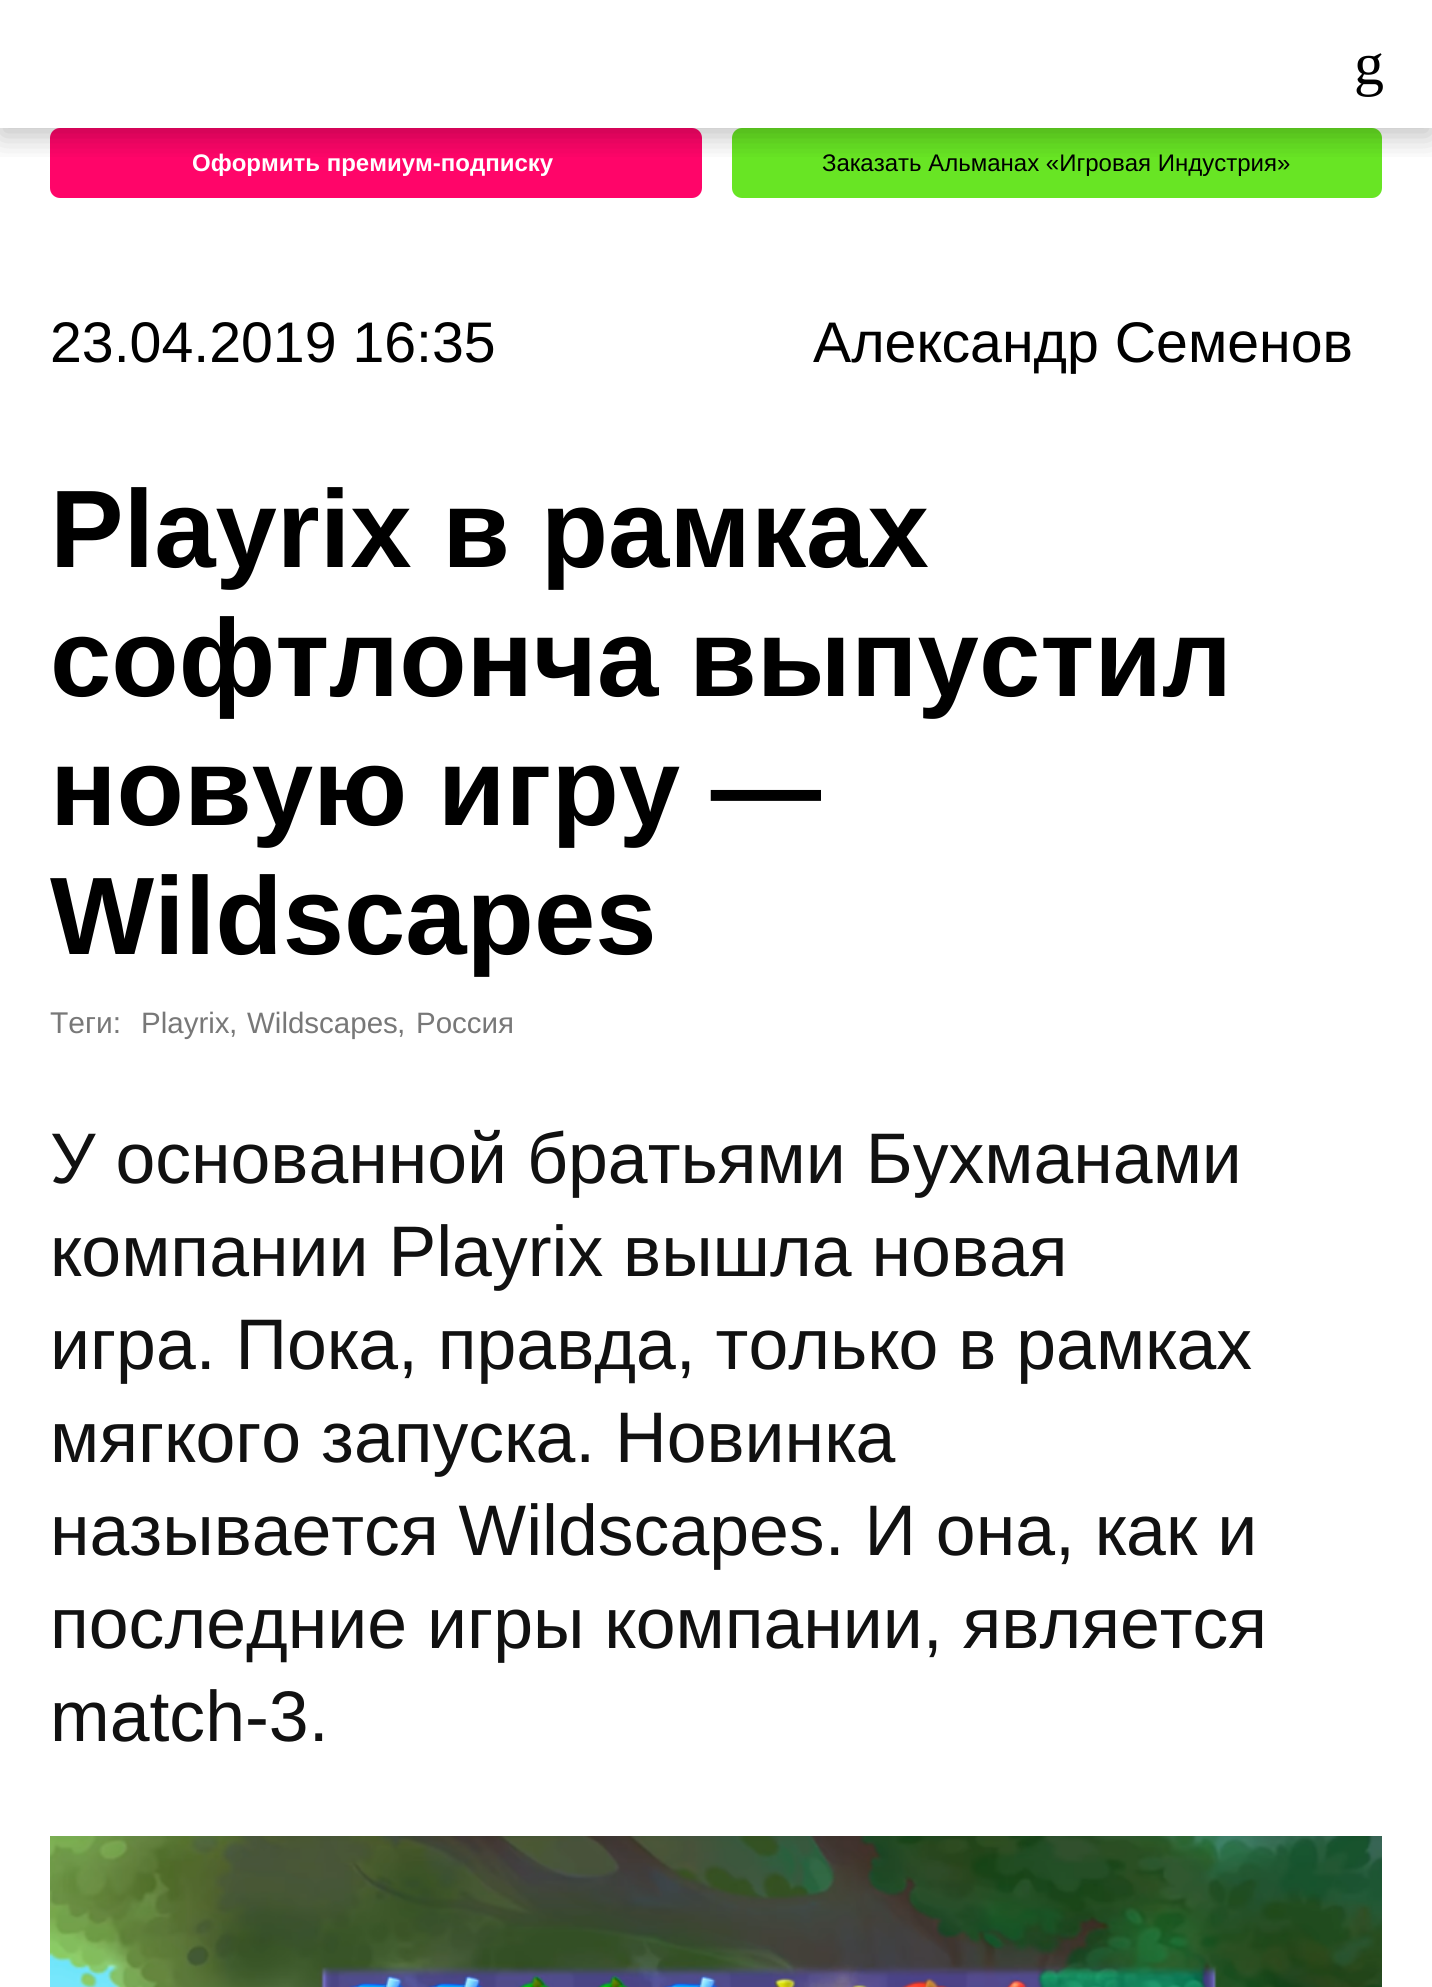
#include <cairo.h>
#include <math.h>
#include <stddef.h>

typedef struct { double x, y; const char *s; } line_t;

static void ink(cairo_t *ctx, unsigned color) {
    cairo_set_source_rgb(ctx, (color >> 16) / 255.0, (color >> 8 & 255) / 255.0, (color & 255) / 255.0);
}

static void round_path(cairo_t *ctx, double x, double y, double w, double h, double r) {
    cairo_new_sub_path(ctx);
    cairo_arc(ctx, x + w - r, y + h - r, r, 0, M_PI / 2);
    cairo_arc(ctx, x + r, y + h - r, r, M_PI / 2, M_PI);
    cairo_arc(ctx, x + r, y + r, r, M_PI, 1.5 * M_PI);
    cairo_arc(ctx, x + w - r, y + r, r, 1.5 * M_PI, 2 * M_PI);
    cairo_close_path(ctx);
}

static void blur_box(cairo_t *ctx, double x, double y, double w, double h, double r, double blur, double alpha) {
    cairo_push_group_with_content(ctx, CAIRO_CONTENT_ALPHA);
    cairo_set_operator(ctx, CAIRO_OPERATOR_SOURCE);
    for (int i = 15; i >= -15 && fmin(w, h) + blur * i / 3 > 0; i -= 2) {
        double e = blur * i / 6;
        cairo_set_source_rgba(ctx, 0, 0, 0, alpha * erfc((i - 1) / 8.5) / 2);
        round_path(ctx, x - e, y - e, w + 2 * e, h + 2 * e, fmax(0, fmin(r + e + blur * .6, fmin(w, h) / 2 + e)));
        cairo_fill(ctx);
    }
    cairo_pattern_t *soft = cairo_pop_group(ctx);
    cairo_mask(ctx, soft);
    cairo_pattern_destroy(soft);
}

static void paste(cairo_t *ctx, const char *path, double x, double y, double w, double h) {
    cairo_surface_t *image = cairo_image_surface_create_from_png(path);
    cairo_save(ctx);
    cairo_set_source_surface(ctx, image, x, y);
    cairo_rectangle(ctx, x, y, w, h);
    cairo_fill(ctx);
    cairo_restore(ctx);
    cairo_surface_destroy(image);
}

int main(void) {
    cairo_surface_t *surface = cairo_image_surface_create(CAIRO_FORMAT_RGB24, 1432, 1987);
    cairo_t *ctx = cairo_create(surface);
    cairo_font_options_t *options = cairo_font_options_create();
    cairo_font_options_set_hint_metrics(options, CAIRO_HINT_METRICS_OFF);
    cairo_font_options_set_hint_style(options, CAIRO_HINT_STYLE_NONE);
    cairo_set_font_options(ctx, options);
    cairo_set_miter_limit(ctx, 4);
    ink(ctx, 0xFFFFFF);
    cairo_paint(ctx);
    ink(ctx, 0xFF0569);
    round_path(ctx, 50, 128, 652, 70, 10);
    cairo_fill(ctx);
    ink(ctx, 0x68E524);
    round_path(ctx, 732, 128, 650, 70, 10);
    cairo_fill(ctx);
    cairo_save(ctx);
    cairo_rectangle(ctx, 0, 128, 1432, 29);
    cairo_clip(ctx);
    ink(ctx, 0x000000);
    blur_box(ctx, 0, 8, 1432, 128, 0, 15, 0.25);
    cairo_restore(ctx);
    cairo_select_font_face(ctx, "Liberation Serif", CAIRO_FONT_SLANT_NORMAL, CAIRO_FONT_WEIGHT_NORMAL);
    cairo_set_font_size(ctx, 60);
    ink(ctx, 0x000000);
    cairo_move_to(ctx, 1354, 84);
    cairo_show_text(ctx, "g");
    cairo_select_font_face(ctx, "Liberation Sans", CAIRO_FONT_SLANT_NORMAL, CAIRO_FONT_WEIGHT_BOLD);
    cairo_set_font_size(ctx, 24);
    ink(ctx, 0xFFFFFF);
    cairo_move_to(ctx, 192, 171);
    cairo_show_text(ctx, "Оформить премиум-подписку");
    cairo_select_font_face(ctx, "Liberation Sans", CAIRO_FONT_SLANT_NORMAL, CAIRO_FONT_WEIGHT_NORMAL);
    ink(ctx, 0x000000);
    cairo_move_to(ctx, 822, 171);
    cairo_show_text(ctx, "Заказать Альманах «Игровая Индустрия»");
    cairo_set_font_size(ctx, 57.25);
    cairo_move_to(ctx, 50, 362);
    cairo_show_text(ctx, "23.04.2019 16:35");
    cairo_move_to(ctx, 813, 362);
    cairo_show_text(ctx, "Александр Семенов");
    cairo_select_font_face(ctx, "Liberation Sans", CAIRO_FONT_SLANT_NORMAL, CAIRO_FONT_WEIGHT_BOLD);
    cairo_set_font_size(ctx, 110.25);
    {
        static const line_t items[] = {
            {50, 567, "Playrix в рамках"},
            {50, 696, "софтлонча выпустил"},
            {50, 825, "новую игру —"},
            {50, 954, "Wildscapes"},
        };
        for (size_t i = 0; i < sizeof items / sizeof *items; i++) {
            cairo_move_to(ctx, items[i].x, items[i].y);
            cairo_show_text(ctx, items[i].s);
        }
    }
    cairo_select_font_face(ctx, "Liberation Sans", CAIRO_FONT_SLANT_NORMAL, CAIRO_FONT_WEIGHT_NORMAL);
    cairo_set_font_size(ctx, 30);
    ink(ctx, 0x787878);
    cairo_move_to(ctx, 50, 1033);
    cairo_show_text(ctx, "Теги:");
    cairo_set_font_size(ctx, 29.5);
    cairo_move_to(ctx, 141, 1033);
    cairo_show_text(ctx, "Playrix");
    cairo_set_font_size(ctx, 30);
    cairo_move_to(ctx, 229, 1033);
    cairo_show_text(ctx, ",");
    cairo_set_font_size(ctx, 29.5);
    cairo_move_to(ctx, 247, 1033);
    cairo_show_text(ctx, "Wildscapes");
    cairo_set_font_size(ctx, 30);
    cairo_move_to(ctx, 397, 1033);
    cairo_show_text(ctx, ",");
    cairo_set_font_size(ctx, 29.5);
    cairo_move_to(ctx, 416, 1033);
    cairo_show_text(ctx, "Россия");
    cairo_set_font_size(ctx, 71.6);
    ink(ctx, 0x111111);
    {
        static const line_t items[] = {
            {50, 1183, "У основанной братьями Бухманами"},
            {50, 1276, "компании Playrix вышла новая"},
            {50, 1369, "игра. Пока, правда, только в рамках"},
            {50, 1462, "мягкого запуска. Новинка"},
            {50, 1555, "называется Wildscapes. И она, как и"},
            {50, 1648, "последние игры компании, является"},
            {50, 1741, "match-3."},
        };
        for (size_t i = 0; i < sizeof items / sizeof *items; i++) {
            cairo_move_to(ctx, items[i].x, items[i].y);
            cairo_show_text(ctx, items[i].s);
        }
    }
    paste(ctx, "media/1.png", 50, 1836, 1332, 151);
    cairo_surface_write_to_png(surface, "image.png");
    cairo_font_options_destroy(options);
    cairo_destroy(ctx);
    cairo_surface_destroy(surface);
    return 0;
}
